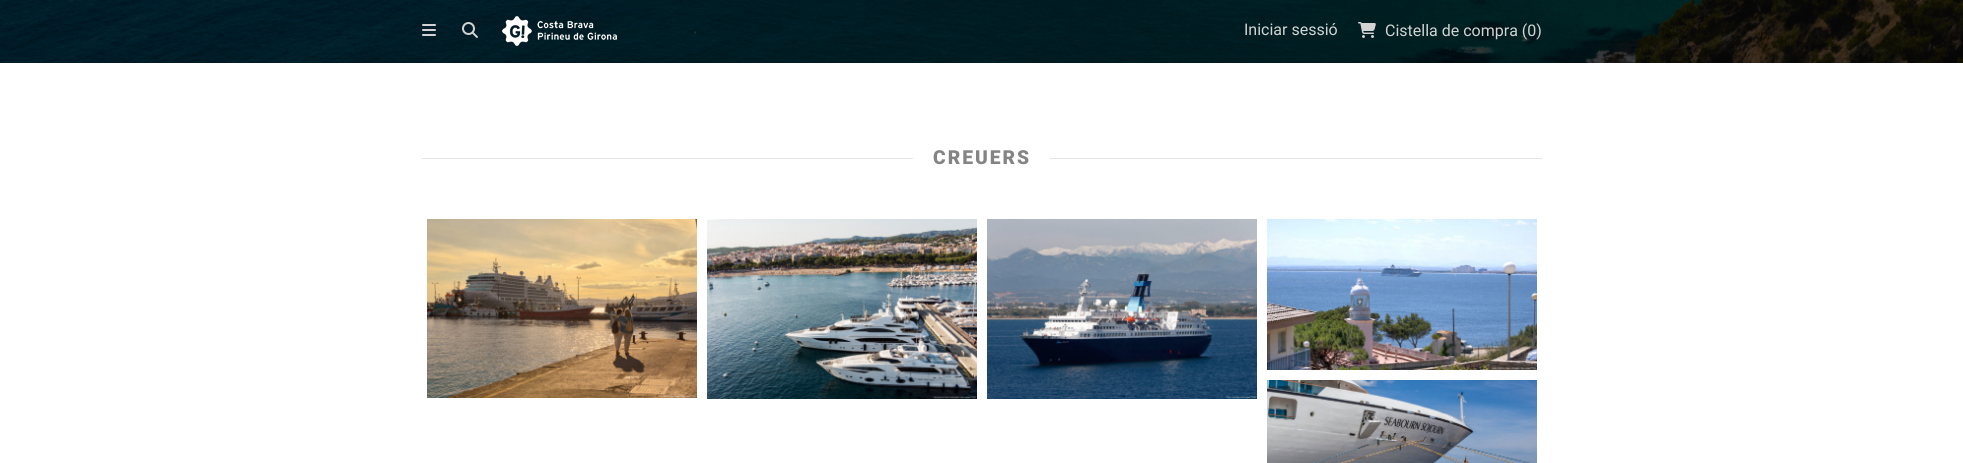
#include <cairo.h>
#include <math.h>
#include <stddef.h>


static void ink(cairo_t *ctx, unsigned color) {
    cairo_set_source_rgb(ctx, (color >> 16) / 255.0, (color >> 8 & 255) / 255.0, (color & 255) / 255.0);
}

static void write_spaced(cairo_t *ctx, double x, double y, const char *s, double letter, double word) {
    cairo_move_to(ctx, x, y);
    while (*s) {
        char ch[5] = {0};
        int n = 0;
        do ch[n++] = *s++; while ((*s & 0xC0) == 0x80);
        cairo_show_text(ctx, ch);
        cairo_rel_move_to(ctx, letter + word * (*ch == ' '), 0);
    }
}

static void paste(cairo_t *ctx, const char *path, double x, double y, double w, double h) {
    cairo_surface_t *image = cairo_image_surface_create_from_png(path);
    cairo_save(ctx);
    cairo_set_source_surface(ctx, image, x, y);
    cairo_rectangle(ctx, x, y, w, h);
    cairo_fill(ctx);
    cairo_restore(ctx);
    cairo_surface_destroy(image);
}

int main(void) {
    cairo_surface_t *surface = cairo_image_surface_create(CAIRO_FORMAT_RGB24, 1963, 463);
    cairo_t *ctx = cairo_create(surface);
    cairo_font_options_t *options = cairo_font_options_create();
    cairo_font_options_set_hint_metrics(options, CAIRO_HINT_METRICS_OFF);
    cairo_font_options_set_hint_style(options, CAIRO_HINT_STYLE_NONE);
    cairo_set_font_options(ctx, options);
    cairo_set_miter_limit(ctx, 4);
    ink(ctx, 0xFFFFFF);
    cairo_paint(ctx);
    paste(ctx, "media/1.png", 0, 0, 1963, 63);
    paste(ctx, "media/2.png", 422, 24, 14, 12);
    paste(ctx, "media/3.png", 462, 22, 16, 16);
    paste(ctx, "media/4.png", 502, 16, 115, 30);
    cairo_select_font_face(ctx, "Roboto", CAIRO_FONT_SLANT_NORMAL, CAIRO_FONT_WEIGHT_NORMAL);
    cairo_set_font_size(ctx, 16);
    ink(ctx, 0xD3D3D3);
    cairo_move_to(ctx, 1244, 35);
    cairo_show_text(ctx, "Iniciar sessió");
    paste(ctx, "media/5.png", 1358, 22, 18, 16);
    cairo_move_to(ctx, 1385, 36);
    cairo_show_text(ctx, "Cistella de compra (0)");
    ink(ctx, 0xE5E5E5);
    cairo_rectangle(ctx, 422, 158, 1120, 1);
    cairo_fill(ctx);
    ink(ctx, 0xFFFFFF);
    cairo_rectangle(ctx, 913, 158, 137, 1);
    cairo_fill(ctx);
    cairo_select_font_face(ctx, "Roboto Black", CAIRO_FONT_SLANT_NORMAL, CAIRO_FONT_WEIGHT_NORMAL);
    cairo_set_font_size(ctx, 19.25);
    ink(ctx, 0x848484);
    write_spaced(ctx, 933, 164, "CREUERS", 2, 0);
    paste(ctx, "media/6.png", 427, 219, 270, 179);
    paste(ctx, "media/7.png", 707, 219, 270, 180);
    paste(ctx, "media/8.png", 987, 219, 270, 180);
    paste(ctx, "media/9.png", 1267, 219, 270, 151);
    paste(ctx, "media/10.png", 1267, 380, 270, 83);
    cairo_surface_write_to_png(surface, "image.png");
    cairo_font_options_destroy(options);
    cairo_destroy(ctx);
    cairo_surface_destroy(surface);
    return 0;
}
